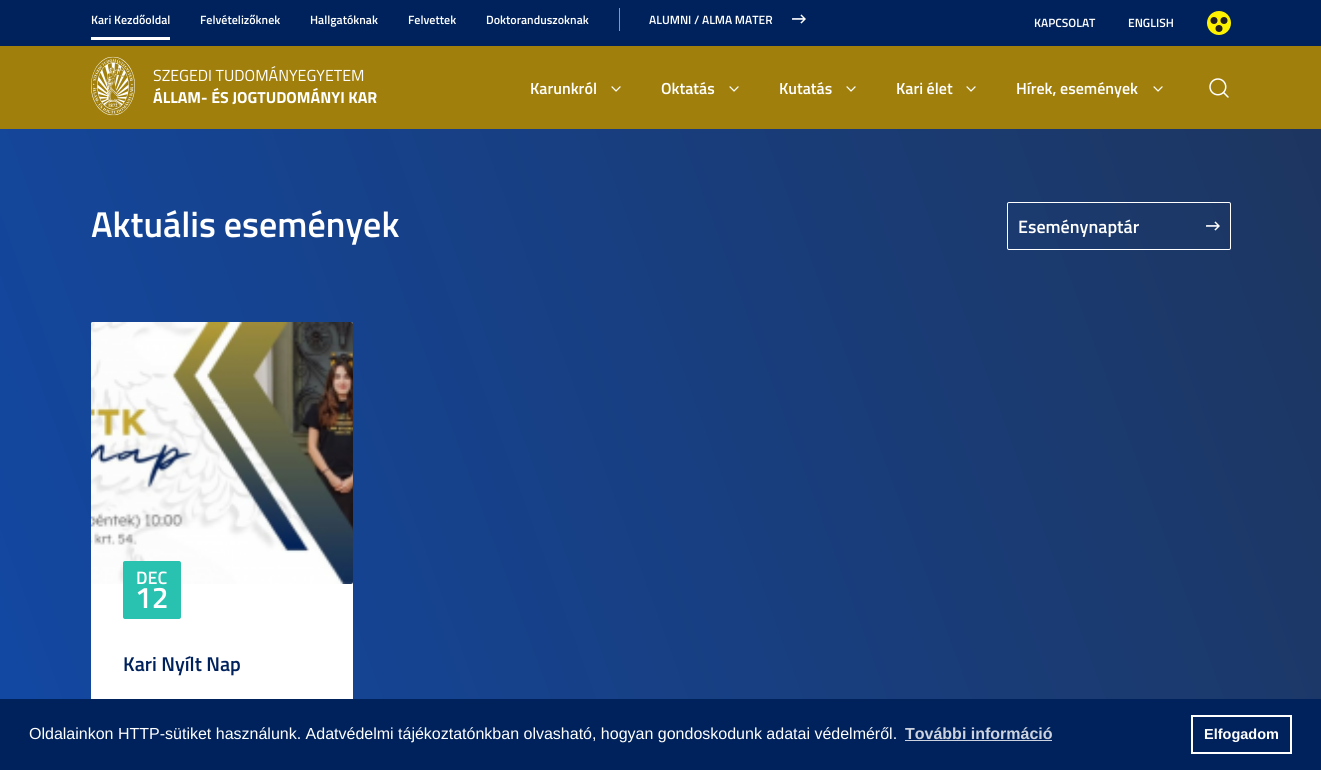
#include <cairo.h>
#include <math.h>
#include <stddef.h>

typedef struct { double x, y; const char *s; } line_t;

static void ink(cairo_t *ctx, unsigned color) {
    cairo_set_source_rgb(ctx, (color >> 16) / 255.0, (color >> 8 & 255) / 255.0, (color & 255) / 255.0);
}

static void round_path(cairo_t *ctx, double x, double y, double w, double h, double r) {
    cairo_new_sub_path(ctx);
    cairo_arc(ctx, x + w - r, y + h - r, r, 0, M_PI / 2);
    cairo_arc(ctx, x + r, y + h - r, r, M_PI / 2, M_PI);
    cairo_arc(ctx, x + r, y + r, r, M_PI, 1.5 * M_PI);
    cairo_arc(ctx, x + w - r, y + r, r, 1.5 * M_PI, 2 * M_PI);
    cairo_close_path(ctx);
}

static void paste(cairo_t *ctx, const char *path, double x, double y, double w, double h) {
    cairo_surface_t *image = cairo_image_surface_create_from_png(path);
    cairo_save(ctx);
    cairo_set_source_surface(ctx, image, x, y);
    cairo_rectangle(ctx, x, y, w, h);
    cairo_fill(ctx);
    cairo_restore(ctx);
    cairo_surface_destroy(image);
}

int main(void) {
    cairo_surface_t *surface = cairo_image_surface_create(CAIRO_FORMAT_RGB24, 1321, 770);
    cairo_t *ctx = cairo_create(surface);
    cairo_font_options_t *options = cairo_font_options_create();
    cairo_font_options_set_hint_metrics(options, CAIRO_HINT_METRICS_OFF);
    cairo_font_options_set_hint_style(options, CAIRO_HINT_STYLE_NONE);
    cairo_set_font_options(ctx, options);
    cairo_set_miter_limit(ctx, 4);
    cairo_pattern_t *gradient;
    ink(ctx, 0xFFFFFF);
    cairo_paint(ctx);
    ink(ctx, 0x00225C);
    cairo_rectangle(ctx, 0, 0, 1321, 46);
    cairo_fill(ctx);
    ink(ctx, 0xFFFFFF);
    cairo_rectangle(ctx, 91, 37, 79, 3);
    cairo_fill(ctx);
    cairo_select_font_face(ctx, "Titillium Web SemiBold", CAIRO_FONT_SLANT_NORMAL, CAIRO_FONT_WEIGHT_NORMAL);
    cairo_set_font_size(ctx, 12);
    {
        static const line_t items[] = {
            {91, 24, "Kari Kezdőoldal"},
            {200, 24, "Felvételizőknek"},
            {310, 24, "Hallgatóknak"},
            {408, 24, "Felvettek"},
            {486, 24, "Doktoranduszoknak"},
        };
        for (size_t i = 0; i < sizeof items / sizeof *items; i++) {
            cairo_move_to(ctx, items[i].x, items[i].y);
            cairo_show_text(ctx, items[i].s);
        }
    }
    ink(ctx, 0x8F96AD);
    cairo_rectangle(ctx, 619, 8, 1, 23);
    cairo_fill(ctx);
    ink(ctx, 0xFFFFFF);
    cairo_move_to(ctx, 649, 24);
    cairo_show_text(ctx, "ALUMNI / ALMA MATER");
    paste(ctx, "media/1.png", 792, 14, 14, 10);
    cairo_move_to(ctx, 1034, 27);
    cairo_show_text(ctx, "KAPCSOLAT");
    cairo_move_to(ctx, 1128, 27);
    cairo_show_text(ctx, "ENGLISH");
    ink(ctx, 0xFFF200);
    cairo_new_path(ctx);
    cairo_arc(ctx, 1219, 23, 12, 0, 2 * M_PI);
    cairo_fill(ctx);
    ink(ctx, 0x231F20);
    cairo_arc(ctx, 1214, 20.5, 3.5, 0, 2 * M_PI);
    cairo_fill(ctx);
    cairo_arc(ctx, 1224, 20.5, 3.5, 0, 2 * M_PI);
    cairo_fill(ctx);
    cairo_arc(ctx, 1219, 28.5, 3.5, 0, 2 * M_PI);
    cairo_fill(ctx);
    ink(ctx, 0xA07F0C);
    cairo_rectangle(ctx, 0, 46, 1321, 83);
    cairo_fill(ctx);
    paste(ctx, "media/2.png", 91, 56, 44, 60);
    cairo_select_font_face(ctx, "Titillium Web", CAIRO_FONT_SLANT_NORMAL, CAIRO_FONT_WEIGHT_NORMAL);
    cairo_set_font_size(ctx, 16);
    ink(ctx, 0xFFFFFF);
    cairo_move_to(ctx, 153, 81);
    cairo_show_text(ctx, "SZEGEDI TUDOMÁNYEGYETEM");
    cairo_select_font_face(ctx, "Titillium Web", CAIRO_FONT_SLANT_NORMAL, CAIRO_FONT_WEIGHT_BOLD);
    cairo_move_to(ctx, 153, 103);
    cairo_show_text(ctx, "ÁLLAM- ÉS JOGTUDOMÁNYI KAR");
    cairo_select_font_face(ctx, "Titillium Web SemiBold", CAIRO_FONT_SLANT_NORMAL, CAIRO_FONT_WEIGHT_NORMAL);
    cairo_move_to(ctx, 530, 94);
    cairo_show_text(ctx, "Karunkról");
    paste(ctx, "media/3.png", 611, 86, 10, 6);
    cairo_move_to(ctx, 661, 94);
    cairo_show_text(ctx, "Oktatás");
    paste(ctx, "media/3.png", 729, 86, 10, 6);
    cairo_move_to(ctx, 779, 94);
    cairo_show_text(ctx, "Kutatás");
    paste(ctx, "media/3.png", 846, 86, 10, 6);
    cairo_move_to(ctx, 896, 94);
    cairo_show_text(ctx, "Kari élet");
    paste(ctx, "media/3.png", 966, 86, 10, 6);
    cairo_move_to(ctx, 1016, 94);
    cairo_show_text(ctx, "Hírek, események");
    paste(ctx, "media/3.png", 1153, 86, 10, 6);
    paste(ctx, "media/4.png", 1209, 78, 20, 20);
    gradient = cairo_pattern_create_linear(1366, 250, -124, 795);
    cairo_pattern_add_color_stop_rgba(gradient, 0.01, 0.114, 0.212, 0.38, 1);
    cairo_pattern_add_color_stop_rgba(gradient, 1, 0.067, 0.29, 0.663, 1);
    cairo_set_source(ctx, gradient);
    cairo_pattern_destroy(gradient);
    cairo_rectangle(ctx, 0, 129, 1321, 570);
    cairo_fill(ctx);
    cairo_set_font_size(ctx, 36);
    ink(ctx, 0xFFFFFF);
    cairo_move_to(ctx, 91, 237);
    cairo_show_text(ctx, "Aktuális események");
    paste(ctx, "media/5.png", 1206, 221, 14, 10);
    round_path(ctx, 1007.5, 202.5, 223, 47, 1.5);
    cairo_set_line_width(ctx, 1);
    cairo_stroke(ctx);
    cairo_set_font_size(ctx, 18);
    cairo_move_to(ctx, 1018, 233);
    cairo_show_text(ctx, "Eseménynaptár");
    round_path(ctx, 91, 322, 262, 445, 2);
    cairo_fill(ctx);
    paste(ctx, "media/6.png", 91, 322, 262, 262);
    ink(ctx, 0x29C2B0);
    round_path(ctx, 123, 561, 58, 58, 2);
    cairo_fill(ctx);
    ink(ctx, 0xFFFFFF);
    cairo_move_to(ctx, 136, 584);
    cairo_show_text(ctx, "DEC");
    cairo_set_font_size(ctx, 30);
    cairo_move_to(ctx, 135, 608);
    cairo_show_text(ctx, "12");
    cairo_set_font_size(ctx, 20);
    ink(ctx, 0x00225C);
    cairo_move_to(ctx, 123, 671);
    cairo_show_text(ctx, "Kari Nyílt Nap");
    cairo_rectangle(ctx, 0, 699, 1321, 71);
    cairo_fill(ctx);
    cairo_select_font_face(ctx, "Liberation Sans", CAIRO_FONT_SLANT_NORMAL, CAIRO_FONT_WEIGHT_NORMAL);
    cairo_set_font_size(ctx, 16);
    ink(ctx, 0xFFFFFF);
    cairo_move_to(ctx, 29, 739);
    cairo_show_text(ctx, "Oldalainkon HTTP-sütiket használunk. Adatvédelmi tájékoztatónkban olvasható, hogyan gondoskodunk adatai védelméről.");
    cairo_select_font_face(ctx, "Liberation Sans", CAIRO_FONT_SLANT_NORMAL, CAIRO_FONT_WEIGHT_BOLD);
    ink(ctx, 0xCCD3DE);
    cairo_move_to(ctx, 905, 739);
    cairo_show_text(ctx, "További információ");
    cairo_rectangle(ctx, 905, 740, 147, 1);
    cairo_fill(ctx);
    cairo_rectangle(ctx, 1192, 716, 99, 37);
    ink(ctx, 0xFFFFFF);
    cairo_set_line_width(ctx, 2);
    cairo_stroke(ctx);
    cairo_set_font_size(ctx, 14.5);
    cairo_move_to(ctx, 1204, 739);
    cairo_show_text(ctx, "Elfogadom");
    cairo_surface_write_to_png(surface, "image.png");
    cairo_font_options_destroy(options);
    cairo_destroy(ctx);
    cairo_surface_destroy(surface);
    return 0;
}
